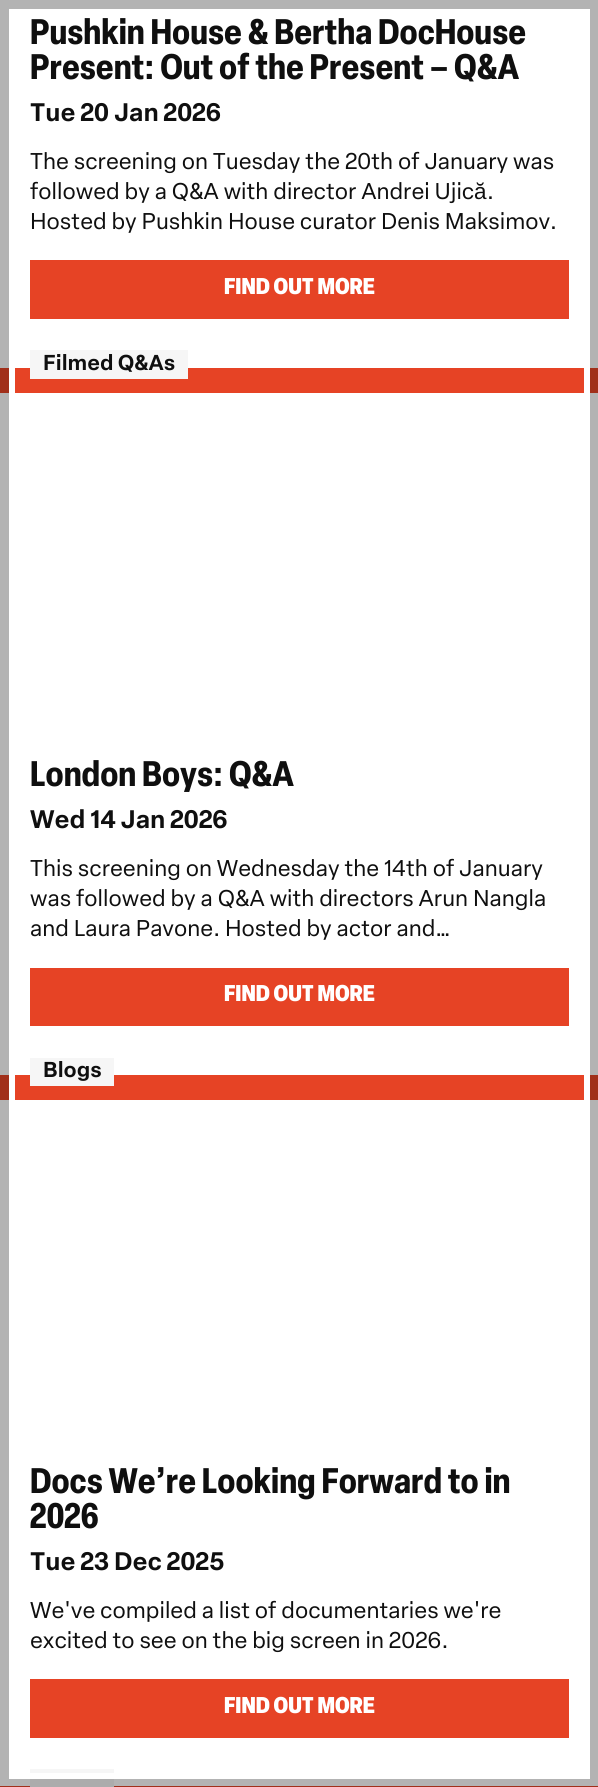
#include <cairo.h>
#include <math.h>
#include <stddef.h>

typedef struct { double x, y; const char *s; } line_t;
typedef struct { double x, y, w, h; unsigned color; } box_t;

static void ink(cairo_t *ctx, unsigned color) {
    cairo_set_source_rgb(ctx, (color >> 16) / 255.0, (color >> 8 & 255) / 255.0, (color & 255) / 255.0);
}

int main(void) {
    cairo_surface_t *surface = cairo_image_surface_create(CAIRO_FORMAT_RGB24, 598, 1787);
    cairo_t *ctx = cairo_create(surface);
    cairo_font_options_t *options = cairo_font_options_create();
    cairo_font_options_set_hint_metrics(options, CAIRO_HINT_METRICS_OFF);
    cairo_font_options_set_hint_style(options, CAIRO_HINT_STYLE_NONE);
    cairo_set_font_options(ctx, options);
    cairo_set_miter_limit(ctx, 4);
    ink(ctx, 0xFFFFFF);
    cairo_paint(ctx);
    {
        static const box_t items[] = {
            {590, 15, 8, 1758, 0xB3B3B3},
            {0, 15, 9, 1758, 0xB3B3B3},
            {0, 1773, 598, 13, 0xB3B3B3},
            {0, 0, 598, 15, 0xB3B3B3},
            {9, 9, 581, 6, 0xFFFFFF},
        };
        for (size_t i = 0; i < sizeof items / sizeof *items; i++) {
            ink(ctx, items[i].color);
            cairo_rectangle(ctx, items[i].x, items[i].y, items[i].w, items[i].h);
            cairo_fill(ctx);
        }
    }
    cairo_select_font_face(ctx, "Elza", CAIRO_FONT_SLANT_NORMAL, CAIRO_FONT_WEIGHT_BOLD);
    cairo_set_font_size(ctx, 35);
    ink(ctx, 0x0F0F0F);
    cairo_move_to(ctx, 30, 44);
    cairo_show_text(ctx, "Pushkin House & Bertha DocHouse");
    cairo_move_to(ctx, 30, 79);
    cairo_show_text(ctx, "Present: Out of the Present – Q&A");
    cairo_select_font_face(ctx, "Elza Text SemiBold", CAIRO_FONT_SLANT_NORMAL, CAIRO_FONT_WEIGHT_NORMAL);
    cairo_set_font_size(ctx, 25);
    cairo_move_to(ctx, 30, 121);
    cairo_show_text(ctx, "Tue 20 Jan 2026");
    cairo_select_font_face(ctx, "Elza Text", CAIRO_FONT_SLANT_NORMAL, CAIRO_FONT_WEIGHT_NORMAL);
    cairo_set_font_size(ctx, 22.5);
    cairo_move_to(ctx, 30, 169);
    cairo_show_text(ctx, "The screening on Tuesday the 20th of January was");
    cairo_move_to(ctx, 30, 199);
    cairo_show_text(ctx, "followed by a Q&A with director Andrei Ujic");
    cairo_select_font_face(ctx, "Liberation Sans", CAIRO_FONT_SLANT_NORMAL, CAIRO_FONT_WEIGHT_NORMAL);
    cairo_move_to(ctx, 474, 199);
    cairo_show_text(ctx, "ă");
    cairo_select_font_face(ctx, "Elza Text", CAIRO_FONT_SLANT_NORMAL, CAIRO_FONT_WEIGHT_NORMAL);
    cairo_move_to(ctx, 487, 199);
    cairo_show_text(ctx, ".");
    cairo_move_to(ctx, 30, 229);
    cairo_show_text(ctx, "Hosted by Pushkin House curator Denis Maksimov.");
    ink(ctx, 0xE64325);
    cairo_rectangle(ctx, 30, 260, 539, 59);
    cairo_fill(ctx);
    cairo_select_font_face(ctx, "Elza Black", CAIRO_FONT_SLANT_NORMAL, CAIRO_FONT_WEIGHT_NORMAL);
    ink(ctx, 0xFFFFFF);
    cairo_move_to(ctx, 224, 294);
    cairo_show_text(ctx, "FIND OUT MORE");
    ink(ctx, 0xE64325);
    cairo_rectangle(ctx, 15, 368, 569, 25);
    cairo_fill(ctx);
    ink(ctx, 0xF6F6F6);
    cairo_rectangle(ctx, 30, 350, 158, 29);
    cairo_fill(ctx);
    cairo_select_font_face(ctx, "Elza Text SemiBold", CAIRO_FONT_SLANT_NORMAL, CAIRO_FONT_WEIGHT_NORMAL);
    cairo_set_font_size(ctx, 21.25);
    ink(ctx, 0x0F0F0F);
    cairo_move_to(ctx, 43, 370);
    cairo_show_text(ctx, "Filmed Q&As");
    ink(ctx, 0xA12F1A);
    cairo_rectangle(ctx, 590, 368, 8, 25);
    cairo_fill(ctx);
    cairo_rectangle(ctx, 0, 368, 9, 25);
    cairo_fill(ctx);
    cairo_select_font_face(ctx, "Elza", CAIRO_FONT_SLANT_NORMAL, CAIRO_FONT_WEIGHT_BOLD);
    cairo_set_font_size(ctx, 35);
    ink(ctx, 0x0F0F0F);
    cairo_move_to(ctx, 30, 786);
    cairo_show_text(ctx, "London Boys: Q&A");
    cairo_select_font_face(ctx, "Elza Text SemiBold", CAIRO_FONT_SLANT_NORMAL, CAIRO_FONT_WEIGHT_NORMAL);
    cairo_set_font_size(ctx, 25);
    cairo_move_to(ctx, 30, 828);
    cairo_show_text(ctx, "Wed 14 Jan 2026");
    cairo_select_font_face(ctx, "Elza Text", CAIRO_FONT_SLANT_NORMAL, CAIRO_FONT_WEIGHT_NORMAL);
    cairo_set_font_size(ctx, 22.5);
    {
        static const line_t items[] = {
            {30, 876, "This screening on Wednesday the 14th of January"},
            {30, 906, "was followed by a Q&A with directors Arun Nangla"},
            {30, 936, "and Laura Pavone. Hosted by actor and…"},
        };
        for (size_t i = 0; i < sizeof items / sizeof *items; i++) {
            cairo_move_to(ctx, items[i].x, items[i].y);
            cairo_show_text(ctx, items[i].s);
        }
    }
    ink(ctx, 0xE64325);
    cairo_rectangle(ctx, 30, 968, 539, 58);
    cairo_fill(ctx);
    cairo_select_font_face(ctx, "Elza Black", CAIRO_FONT_SLANT_NORMAL, CAIRO_FONT_WEIGHT_NORMAL);
    ink(ctx, 0xFFFFFF);
    cairo_move_to(ctx, 224, 1001);
    cairo_show_text(ctx, "FIND OUT MORE");
    ink(ctx, 0xE64325);
    cairo_rectangle(ctx, 15, 1075, 569, 25);
    cairo_fill(ctx);
    ink(ctx, 0xF6F6F6);
    cairo_rectangle(ctx, 30, 1058, 84, 28);
    cairo_fill(ctx);
    cairo_select_font_face(ctx, "Elza Text SemiBold", CAIRO_FONT_SLANT_NORMAL, CAIRO_FONT_WEIGHT_NORMAL);
    cairo_set_font_size(ctx, 21.25);
    ink(ctx, 0x0F0F0F);
    cairo_move_to(ctx, 43, 1077);
    cairo_show_text(ctx, "Blogs");
    ink(ctx, 0xA12F1A);
    cairo_rectangle(ctx, 590, 1075, 8, 25);
    cairo_fill(ctx);
    cairo_rectangle(ctx, 0, 1075, 9, 25);
    cairo_fill(ctx);
    cairo_select_font_face(ctx, "Elza", CAIRO_FONT_SLANT_NORMAL, CAIRO_FONT_WEIGHT_BOLD);
    cairo_set_font_size(ctx, 35);
    ink(ctx, 0x0F0F0F);
    cairo_move_to(ctx, 30, 1493);
    cairo_show_text(ctx, "Docs We’re Looking Forward to in");
    cairo_move_to(ctx, 30, 1528);
    cairo_show_text(ctx, "2026");
    cairo_select_font_face(ctx, "Elza Text SemiBold", CAIRO_FONT_SLANT_NORMAL, CAIRO_FONT_WEIGHT_NORMAL);
    cairo_set_font_size(ctx, 25);
    cairo_move_to(ctx, 30, 1570);
    cairo_show_text(ctx, "Tue 23 Dec 2025");
    cairo_select_font_face(ctx, "Elza Text", CAIRO_FONT_SLANT_NORMAL, CAIRO_FONT_WEIGHT_NORMAL);
    cairo_set_font_size(ctx, 22.5);
    cairo_move_to(ctx, 30, 1618);
    cairo_show_text(ctx, "We've compiled a list of documentaries we're");
    cairo_move_to(ctx, 30, 1648);
    cairo_show_text(ctx, "excited to see on the big screen in 2026.");
    ink(ctx, 0xE64325);
    cairo_rectangle(ctx, 30, 1679, 539, 59);
    cairo_fill(ctx);
    cairo_select_font_face(ctx, "Elza Black", CAIRO_FONT_SLANT_NORMAL, CAIRO_FONT_WEIGHT_NORMAL);
    ink(ctx, 0xFFFFFF);
    cairo_move_to(ctx, 224, 1713);
    cairo_show_text(ctx, "FIND OUT MORE");
    {
        static const box_t items[] = {
            {30, 1769, 84, 4, 0xF6F6F6},
            {0, 1786, 598, 1, 0xA12F1A},
            {30, 1779, 84, 8, 0xACACAC},
            {9, 1773, 581, 6, 0xFFFFFF},
        };
        for (size_t i = 0; i < sizeof items / sizeof *items; i++) {
            ink(ctx, items[i].color);
            cairo_rectangle(ctx, items[i].x, items[i].y, items[i].w, items[i].h);
            cairo_fill(ctx);
        }
    }
    cairo_surface_write_to_png(surface, "image.png");
    cairo_font_options_destroy(options);
    cairo_destroy(ctx);
    cairo_surface_destroy(surface);
    return 0;
}
